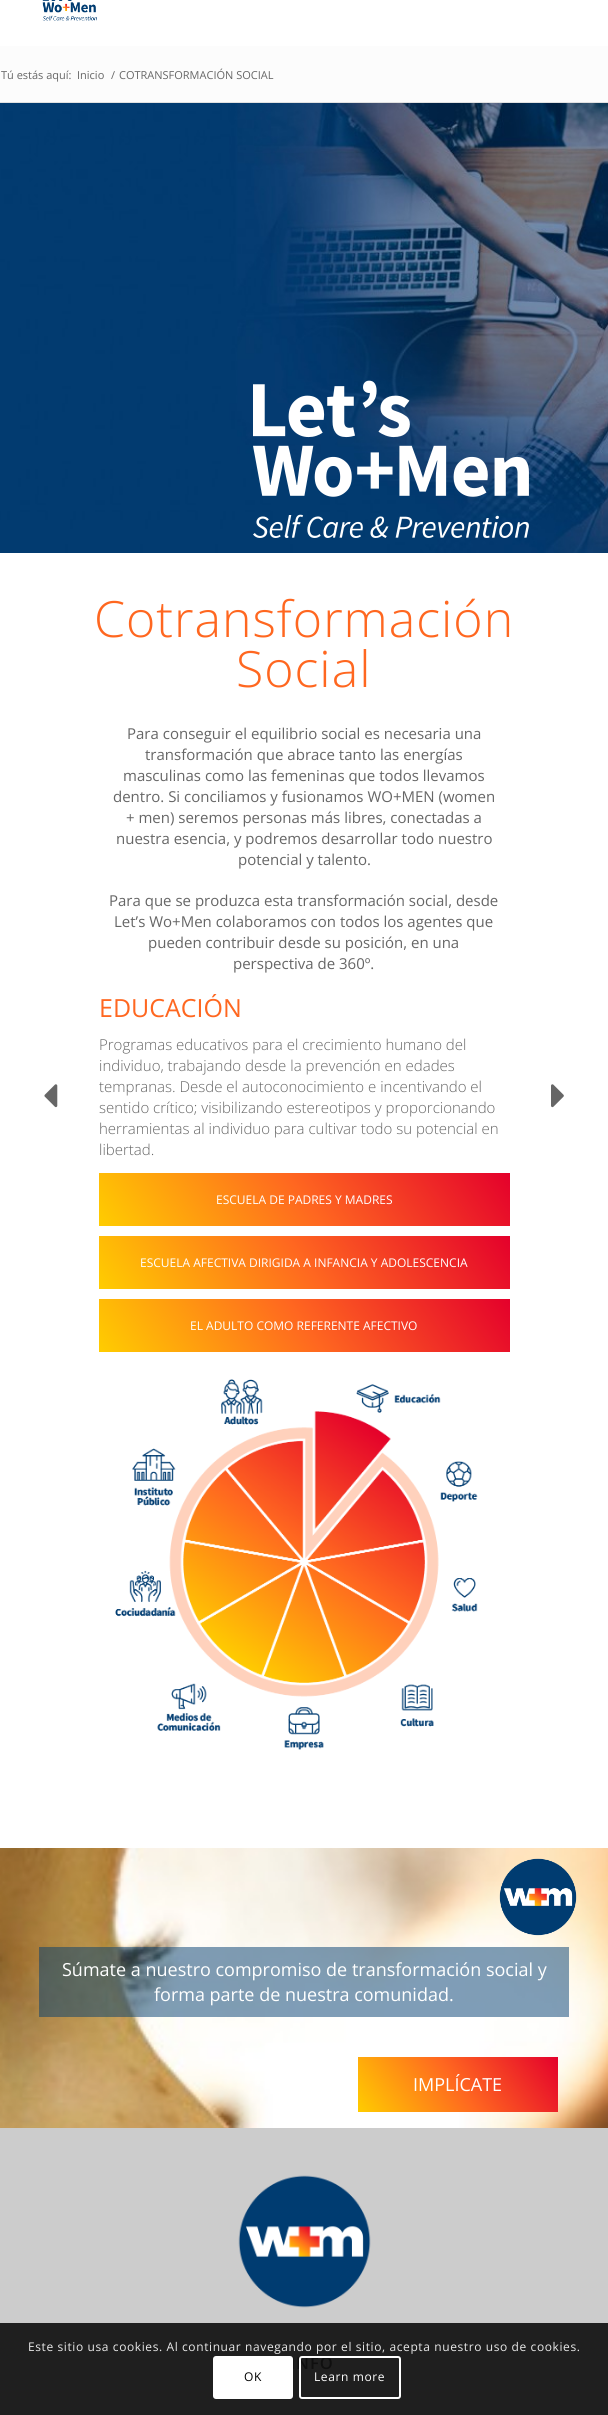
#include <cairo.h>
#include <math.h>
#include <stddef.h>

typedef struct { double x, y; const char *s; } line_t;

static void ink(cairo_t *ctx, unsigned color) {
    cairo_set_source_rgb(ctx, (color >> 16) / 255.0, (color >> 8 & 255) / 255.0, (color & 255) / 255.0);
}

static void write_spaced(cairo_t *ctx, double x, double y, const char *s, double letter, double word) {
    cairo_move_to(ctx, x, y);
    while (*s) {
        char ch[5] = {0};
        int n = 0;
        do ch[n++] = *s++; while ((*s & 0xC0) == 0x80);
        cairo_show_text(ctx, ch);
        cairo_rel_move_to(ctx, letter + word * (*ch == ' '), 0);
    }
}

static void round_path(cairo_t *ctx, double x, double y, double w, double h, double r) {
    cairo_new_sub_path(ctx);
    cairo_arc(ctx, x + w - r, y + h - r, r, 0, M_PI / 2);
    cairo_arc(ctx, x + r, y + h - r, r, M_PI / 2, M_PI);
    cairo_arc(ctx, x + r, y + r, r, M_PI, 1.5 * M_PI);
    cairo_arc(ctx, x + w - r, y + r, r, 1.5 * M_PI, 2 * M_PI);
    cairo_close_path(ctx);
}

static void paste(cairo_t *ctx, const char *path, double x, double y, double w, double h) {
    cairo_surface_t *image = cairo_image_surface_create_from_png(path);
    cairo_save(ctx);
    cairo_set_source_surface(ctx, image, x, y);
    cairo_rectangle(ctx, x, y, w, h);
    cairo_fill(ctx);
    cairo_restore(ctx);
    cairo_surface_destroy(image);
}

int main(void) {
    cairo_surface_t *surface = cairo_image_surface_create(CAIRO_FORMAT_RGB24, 608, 2415);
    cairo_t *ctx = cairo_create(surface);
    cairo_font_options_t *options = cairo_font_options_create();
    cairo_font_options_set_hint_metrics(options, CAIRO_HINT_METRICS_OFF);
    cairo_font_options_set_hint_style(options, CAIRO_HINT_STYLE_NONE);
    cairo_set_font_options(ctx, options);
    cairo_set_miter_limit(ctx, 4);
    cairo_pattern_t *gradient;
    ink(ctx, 0xFFFFFF);
    cairo_paint(ctx);
    paste(ctx, "media/1.png", 42, 0, 55, 21);
    ink(ctx, 0xFCFCFC);
    cairo_rectangle(ctx, 0, 46, 608, 56);
    cairo_fill(ctx);
    cairo_select_font_face(ctx, "Open Sans", CAIRO_FONT_SLANT_NORMAL, CAIRO_FONT_WEIGHT_NORMAL);
    cairo_set_font_size(ctx, 11);
    ink(ctx, 0x666666);
    {
        static const line_t items[] = {
            {1, 79, "Tú estás aquí:"},
            {77, 79, "Inicio"},
            {111, 79, "/"},
            {119, 79, "COTRANSFORMACIÓN SOCIAL"},
        };
        for (size_t i = 0; i < sizeof items / sizeof *items; i++) {
            cairo_move_to(ctx, items[i].x, items[i].y);
            cairo_show_text(ctx, items[i].s);
        }
    }
    ink(ctx, 0xE1E1E1);
    cairo_rectangle(ctx, 0, 102, 608, 1);
    cairo_fill(ctx);
    paste(ctx, "media/2.png", 0, 103, 608, 450);
    paste(ctx, "media/3.png", 253, 380, 276, 158);
    cairo_select_font_face(ctx, "Open Sans Light", CAIRO_FONT_SLANT_NORMAL, CAIRO_FONT_WEIGHT_NORMAL);
    cairo_set_font_size(ctx, 50);
    ink(ctx, 0xFF6720);
    write_spaced(ctx, 94, 637, "Cotransformación", 1, 0);
    write_spaced(ctx, 236, 687, "Social", 1, 0);
    cairo_select_font_face(ctx, "Open Sans", CAIRO_FONT_SLANT_NORMAL, CAIRO_FONT_WEIGHT_NORMAL);
    cairo_set_font_size(ctx, 15);
    ink(ctx, 0x666666);
    {
        static const line_t items[] = {
            {127, 739, "Para conseguir el equilibrio social es necesaria una"},
            {145, 760, "transformación que abrace tanto las energías"},
            {123, 781, "masculinas como las femeninas que todos llevamos"},
            {113, 802, "dentro. Si conciliamos y fusionamos WO+MEN (women"},
            {126, 823, "+ men) seremos personas más libres, conectadas a"},
            {116, 844, "nuestra esencia, y podremos desarrollar todo nuestro"},
            {238, 865, "potencial y talento."},
            {109, 906, "Para que se produzca esta transformación social, desde"},
            {114, 927, "Let’s Wo+Men colaboramos con todos los agentes que"},
            {148, 948, "pueden contribuir desde su posición, en una"},
            {233, 969, "perspectiva de 360º."},
        };
        for (size_t i = 0; i < sizeof items / sizeof *items; i++) {
            cairo_move_to(ctx, items[i].x, items[i].y);
            cairo_show_text(ctx, items[i].s);
        }
    }
    cairo_save(ctx);
    cairo_rectangle(ctx, 30, 994, 548, 768);
    cairo_clip(ctx);
    cairo_set_font_size(ctx, 25);
    ink(ctx, 0xFF6720);
    cairo_move_to(ctx, 99, 1017);
    cairo_show_text(ctx, "EDUCACIÓN");
    cairo_restore(ctx);
    cairo_select_font_face(ctx, "Open Sans Light", CAIRO_FONT_SLANT_NORMAL, CAIRO_FONT_WEIGHT_NORMAL);
    {
        static const line_t items[] = {
            {99, 1050, "Programas educativos para el crecimiento humano del"},
            {99, 1071, "individuo, trabajando desde la prevención en edades"},
            {99, 1092, "tempranas. Desde el autoconocimiento e incentivando el"},
            {99, 1113, "sentido crítico; visibilizando estereotipos y proporcionando"},
            {99, 1134, "herramientas al individuo para cultivar todo su potencial en"},
            {99, 1155, "libertad."},
        };
        for (size_t i = 0; i < sizeof items / sizeof *items; i++) {
            cairo_move_to(ctx, items[i].x, items[i].y);
            cairo_show_text(ctx, items[i].s);
        }
    }
    gradient = cairo_pattern_create_linear(154, 1305, 455, 1094);
    cairo_pattern_add_color_stop_rgba(gradient, 0, 1, 0.804, 0, 1);
    cairo_pattern_add_color_stop_rgba(gradient, 0.5, 1, 0.404, 0.125, 1);
    cairo_pattern_add_color_stop_rgba(gradient, 1, 0.894, 0, 0.169, 1);
    cairo_set_source(ctx, gradient);
    cairo_pattern_destroy(gradient);
    cairo_rectangle(ctx, 99, 1173, 411, 53);
    cairo_fill(ctx);
    cairo_select_font_face(ctx, "Open Sans", CAIRO_FONT_SLANT_NORMAL, CAIRO_FONT_WEIGHT_NORMAL);
    cairo_set_font_size(ctx, 12);
    ink(ctx, 0xFFFFFF);
    cairo_move_to(ctx, 216, 1204);
    cairo_show_text(ctx, "ESCUELA DE PADRES Y MADRES");
    gradient = cairo_pattern_create_linear(154, 1368, 455, 1157);
    cairo_pattern_add_color_stop_rgba(gradient, 0, 1, 0.804, 0, 1);
    cairo_pattern_add_color_stop_rgba(gradient, 0.5, 1, 0.404, 0.125, 1);
    cairo_pattern_add_color_stop_rgba(gradient, 1, 0.894, 0, 0.169, 1);
    cairo_set_source(ctx, gradient);
    cairo_pattern_destroy(gradient);
    cairo_rectangle(ctx, 99, 1236, 411, 53);
    cairo_fill(ctx);
    ink(ctx, 0xFFFFFF);
    cairo_move_to(ctx, 140, 1267);
    cairo_show_text(ctx, "ESCUELA AFECTIVA DIRIGIDA A INFANCIA Y ADOLESCENCIA");
    gradient = cairo_pattern_create_linear(154, 1431, 455, 1220);
    cairo_pattern_add_color_stop_rgba(gradient, 0, 1, 0.804, 0, 1);
    cairo_pattern_add_color_stop_rgba(gradient, 0.5, 1, 0.404, 0.125, 1);
    cairo_pattern_add_color_stop_rgba(gradient, 1, 0.894, 0, 0.169, 1);
    cairo_set_source(ctx, gradient);
    cairo_pattern_destroy(gradient);
    cairo_rectangle(ctx, 99, 1299, 411, 53);
    cairo_fill(ctx);
    ink(ctx, 0xFFFFFF);
    cairo_move_to(ctx, 190, 1330);
    cairo_show_text(ctx, "EL ADULTO COMO REFERENTE AFECTIVO");
    paste(ctx, "media/4.png", 115, 1379, 363, 371);
    paste(ctx, "media/5.png", 44, 1084, 14, 24);
    paste(ctx, "media/6.png", 551, 1084, 13, 24);
    paste(ctx, "media/7.png", 0, 1848, 608, 280);
    paste(ctx, "media/8.png", 499, 1858, 78, 78);
    cairo_set_source_rgba(ctx, 0, 0.235, 0.443, 0.5);
    cairo_rectangle(ctx, 39, 1947, 530, 70);
    cairo_fill(ctx);
    cairo_set_font_size(ctx, 18);
    ink(ctx, 0xFFFFFF);
    cairo_move_to(ctx, 62, 1976);
    cairo_show_text(ctx, "Súmate a nuestro compromiso de transformación social y");
    cairo_move_to(ctx, 154, 2001);
    cairo_show_text(ctx, "forma parte de nuestra comunidad.");
    gradient = cairo_pattern_create_linear(378, 2141, 538, 2028);
    cairo_pattern_add_color_stop_rgba(gradient, 0, 1, 0.804, 0, 1);
    cairo_pattern_add_color_stop_rgba(gradient, 0.5, 1, 0.404, 0.125, 1);
    cairo_pattern_add_color_stop_rgba(gradient, 1, 0.894, 0, 0.169, 1);
    cairo_set_source(ctx, gradient);
    cairo_pattern_destroy(gradient);
    cairo_rectangle(ctx, 358, 2057, 200, 55);
    cairo_fill(ctx);
    ink(ctx, 0xFFFFFF);
    cairo_move_to(ctx, 413, 2091);
    cairo_show_text(ctx, "IMPLÍCATE");
    ink(ctx, 0xCCCCCC);
    cairo_rectangle(ctx, 0, 2128, 608, 195);
    cairo_fill(ctx);
    ink(ctx, 0x1F1F1F);
    cairo_rectangle(ctx, 0, 2323, 608, 92);
    cairo_fill(ctx);
    paste(ctx, "media/9.png", 238, 2175, 133, 133);
    cairo_select_font_face(ctx, "Open Sans SemiBold", CAIRO_FONT_SLANT_NORMAL, CAIRO_FONT_WEIGHT_NORMAL);
    cairo_set_font_size(ctx, 16.5);
    ink(ctx, 0x0F0F0F);
    write_spaced(ctx, 290, 2369, "INFO", 1, 0);
    cairo_select_font_face(ctx, "Open Sans", CAIRO_FONT_SLANT_NORMAL, CAIRO_FONT_WEIGHT_NORMAL);
    cairo_set_font_size(ctx, 12);
    ink(ctx, 0xE9E9E9);
    write_spaced(ctx, 28, 2351, "Este sitio usa cookies. Al continuar navegando por el sitio, acepta nuestro uso de cookies.", 0.6, 0);
    ink(ctx, 0xFFFFFF);
    round_path(ctx, 213, 2356, 80, 43, 3);
    cairo_fill(ctx);
    ink(ctx, 0x000000);
    write_spaced(ctx, 244, 2381, "OK", 0.6, 0);
    round_path(ctx, 300, 2357, 100, 41, 2);
    ink(ctx, 0xFFFFFF);
    cairo_stroke(ctx);
    write_spaced(ctx, 314, 2381, "Learn more", 0.6, 0);
    cairo_surface_write_to_png(surface, "image.png");
    cairo_font_options_destroy(options);
    cairo_destroy(ctx);
    cairo_surface_destroy(surface);
    return 0;
}
